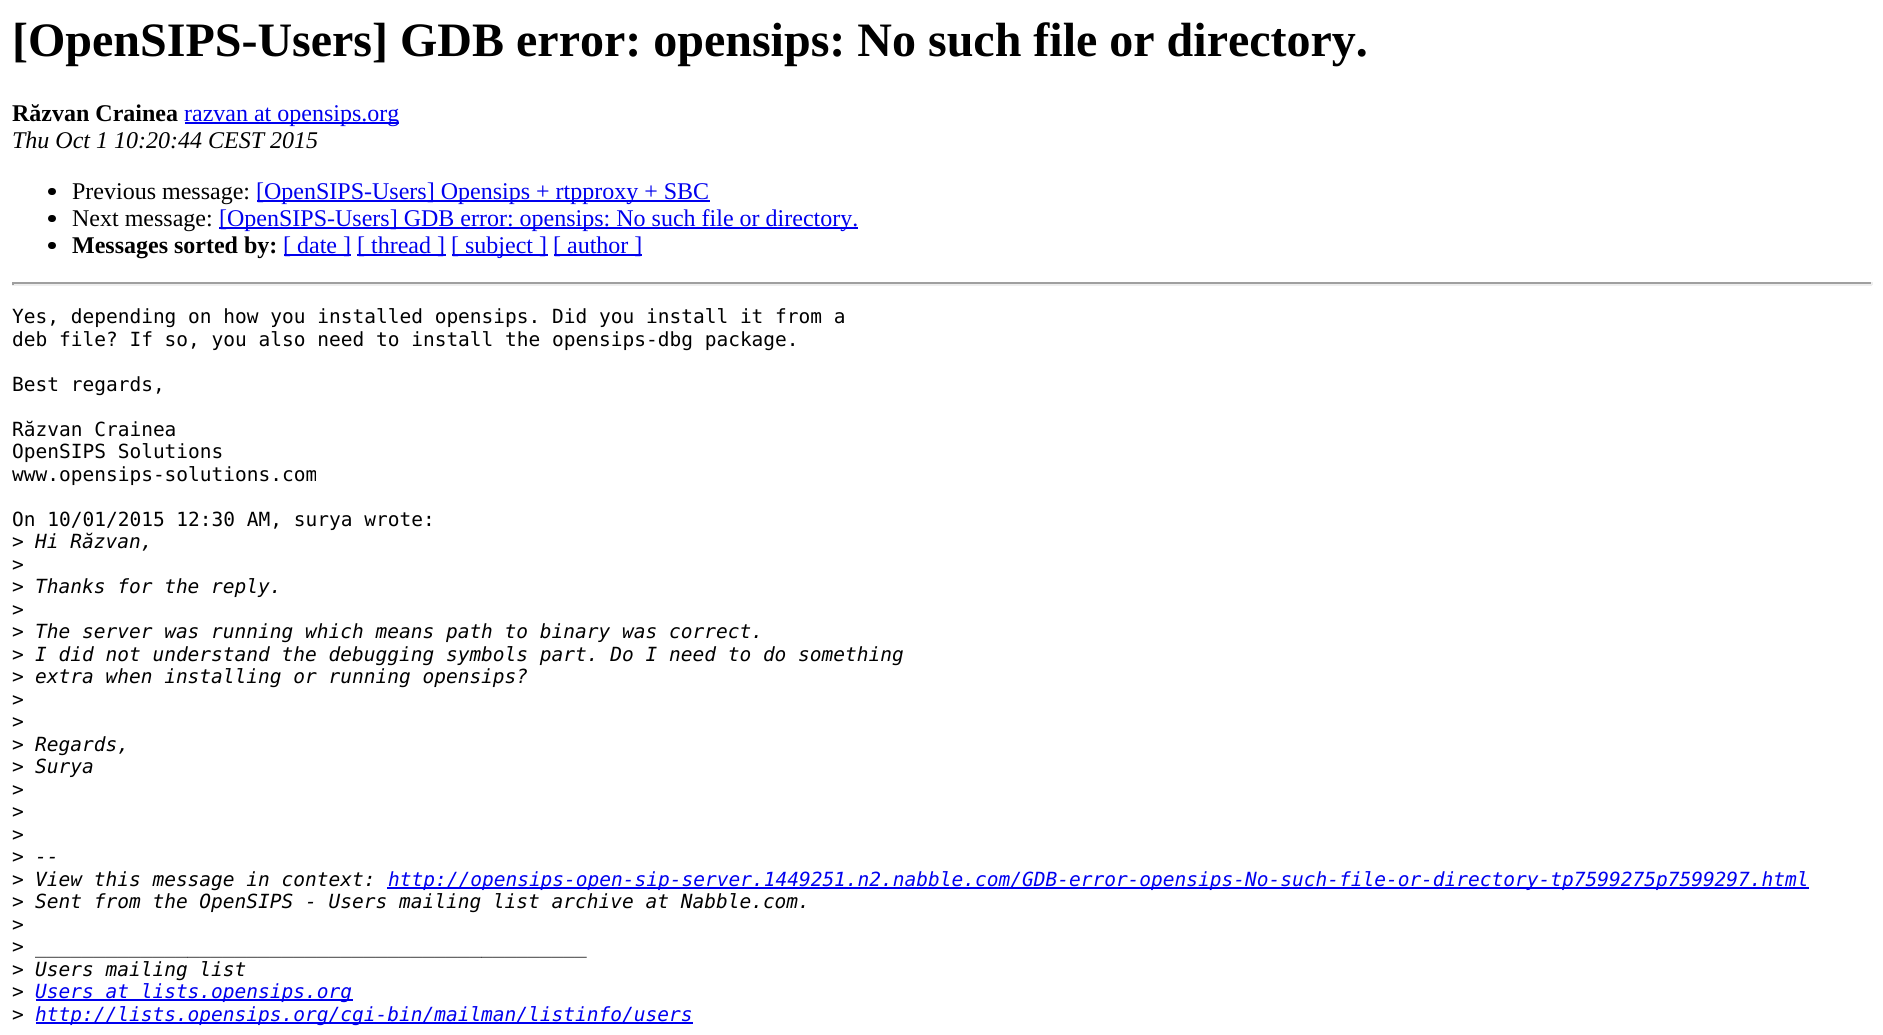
#include <cairo.h>
#include <math.h>
#include <stddef.h>

typedef struct { double x, y; const char *s; } line_t;
typedef struct { double x, y, w, h; unsigned color; } box_t;

static void ink(cairo_t *ctx, unsigned color) {
    cairo_set_source_rgb(ctx, (color >> 16) / 255.0, (color >> 8 & 255) / 255.0, (color & 255) / 255.0);
}

static void round_path(cairo_t *ctx, double x, double y, double w, double h, double r) {
    cairo_new_sub_path(ctx);
    cairo_arc(ctx, x + w - r, y + h - r, r, 0, M_PI / 2);
    cairo_arc(ctx, x + r, y + h - r, r, M_PI / 2, M_PI);
    cairo_arc(ctx, x + r, y + r, r, M_PI, 1.5 * M_PI);
    cairo_arc(ctx, x + w - r, y + r, r, 1.5 * M_PI, 2 * M_PI);
    cairo_close_path(ctx);
}

int main(void) {
    cairo_surface_t *surface = cairo_image_surface_create(CAIRO_FORMAT_RGB24, 1883, 1035);
    cairo_t *ctx = cairo_create(surface);
    cairo_font_options_t *options = cairo_font_options_create();
    cairo_font_options_set_hint_metrics(options, CAIRO_HINT_METRICS_OFF);
    cairo_font_options_set_hint_style(options, CAIRO_HINT_STYLE_NONE);
    cairo_set_font_options(ctx, options);
    cairo_set_miter_limit(ctx, 4);
    ink(ctx, 0xFFFFFF);
    cairo_paint(ctx);
    cairo_select_font_face(ctx, "Liberation Serif", CAIRO_FONT_SLANT_NORMAL, CAIRO_FONT_WEIGHT_BOLD);
    cairo_set_font_size(ctx, 48);
    ink(ctx, 0x000000);
    cairo_move_to(ctx, 12, 56);
    cairo_show_text(ctx, "[OpenSIPS-Users] GDB error: opensips: No such file or directory.");
    cairo_set_font_size(ctx, 24);
    cairo_move_to(ctx, 12, 121);
    cairo_show_text(ctx, "Răzvan Crainea");
    ink(ctx, 0x0000EE);
    cairo_rectangle(ctx, 185, 122, 214, 2);
    cairo_fill(ctx);
    cairo_select_font_face(ctx, "Liberation Serif", CAIRO_FONT_SLANT_NORMAL, CAIRO_FONT_WEIGHT_NORMAL);
    cairo_move_to(ctx, 184, 121);
    cairo_show_text(ctx, "razvan at opensips.org");
    cairo_select_font_face(ctx, "Liberation Serif", CAIRO_FONT_SLANT_ITALIC, CAIRO_FONT_WEIGHT_NORMAL);
    ink(ctx, 0x000000);
    cairo_move_to(ctx, 12, 148);
    cairo_show_text(ctx, "Thu Oct 1 10:20:44 CEST 2015");
    round_path(ctx, 48, 188, 8, 7, 3.5);
    cairo_fill(ctx);
    cairo_select_font_face(ctx, "Liberation Serif", CAIRO_FONT_SLANT_NORMAL, CAIRO_FONT_WEIGHT_NORMAL);
    cairo_move_to(ctx, 72, 199);
    cairo_show_text(ctx, "Previous message:");
    ink(ctx, 0x0000EE);
    cairo_rectangle(ctx, 257, 200, 453, 2);
    cairo_fill(ctx);
    cairo_move_to(ctx, 256, 199);
    cairo_show_text(ctx, "[OpenSIPS-Users] Opensips + rtpproxy + SBC");
    ink(ctx, 0x000000);
    round_path(ctx, 48, 215, 8, 7, 3.5);
    cairo_fill(ctx);
    cairo_move_to(ctx, 72, 226);
    cairo_show_text(ctx, "Next message:");
    ink(ctx, 0x0000EE);
    cairo_rectangle(ctx, 219, 227, 639, 2);
    cairo_fill(ctx);
    cairo_move_to(ctx, 219, 226);
    cairo_show_text(ctx, "[OpenSIPS-Users] GDB error: opensips: No such file or directory.");
    ink(ctx, 0x000000);
    round_path(ctx, 48, 242, 8, 7, 3.5);
    cairo_fill(ctx);
    cairo_select_font_face(ctx, "Liberation Serif", CAIRO_FONT_SLANT_NORMAL, CAIRO_FONT_WEIGHT_BOLD);
    cairo_move_to(ctx, 72, 253);
    cairo_show_text(ctx, "Messages sorted by:");
    ink(ctx, 0x0000EE);
    cairo_rectangle(ctx, 284, 254, 67, 2);
    cairo_fill(ctx);
    cairo_select_font_face(ctx, "Liberation Serif", CAIRO_FONT_SLANT_NORMAL, CAIRO_FONT_WEIGHT_NORMAL);
    cairo_move_to(ctx, 283, 253);
    cairo_show_text(ctx, "[ date ]");
    cairo_rectangle(ctx, 357, 254, 89, 2);
    cairo_fill(ctx);
    cairo_move_to(ctx, 357, 253);
    cairo_show_text(ctx, "[ thread ]");
    cairo_rectangle(ctx, 452, 254, 96, 2);
    cairo_fill(ctx);
    cairo_move_to(ctx, 451, 253);
    cairo_show_text(ctx, "[ subject ]");
    cairo_rectangle(ctx, 554, 254, 88, 2);
    cairo_fill(ctx);
    cairo_move_to(ctx, 553, 253);
    cairo_show_text(ctx, "[ author ]");
    {
        static const box_t items[] = {
            {12, 282, 1860, 2, 0x9F9F9F},
            {1871, 282, 2, 3, 0xEEEEEE},
            {12, 284, 1860, 2, 0xEEEEEE},
            {12, 282, 2, 3, 0x9F9F9F},
        };
        for (size_t i = 0; i < sizeof items / sizeof *items; i++) {
            ink(ctx, items[i].color);
            cairo_rectangle(ctx, items[i].x, items[i].y, items[i].w, items[i].h);
            cairo_fill(ctx);
        }
    }
    cairo_select_font_face(ctx, "DejaVu Sans Mono", CAIRO_FONT_SLANT_NORMAL, CAIRO_FONT_WEIGHT_NORMAL);
    cairo_set_font_size(ctx, 19.5);
    ink(ctx, 0x000000);
    {
        static const line_t items[] = {
            {12, 323, "Yes, depending on how you installed opensips. Did you install it from a"},
            {12, 346, "deb file? If so, you also need to install the opensips-dbg package."},
            {12, 391, "Best regards,"},
            {12, 436, "Răzvan Crainea"},
            {12, 458, "OpenSIPS Solutions"},
            {12, 481, "www.opensips-solutions.com"},
            {12, 526, "On 10/01/2015 12:30 AM, surya wrote:"},
            {12, 548, ">"},
        };
        for (size_t i = 0; i < sizeof items / sizeof *items; i++) {
            cairo_move_to(ctx, items[i].x, items[i].y);
            cairo_show_text(ctx, items[i].s);
        }
    }
    cairo_select_font_face(ctx, "DejaVu Sans Mono", CAIRO_FONT_SLANT_ITALIC, CAIRO_FONT_WEIGHT_NORMAL);
    cairo_move_to(ctx, 35, 548);
    cairo_show_text(ctx, "Hi Răzvan,");
    cairo_select_font_face(ctx, "DejaVu Sans Mono", CAIRO_FONT_SLANT_NORMAL, CAIRO_FONT_WEIGHT_NORMAL);
    cairo_move_to(ctx, 12, 571);
    cairo_show_text(ctx, ">");
    cairo_move_to(ctx, 12, 593);
    cairo_show_text(ctx, ">");
    cairo_select_font_face(ctx, "DejaVu Sans Mono", CAIRO_FONT_SLANT_ITALIC, CAIRO_FONT_WEIGHT_NORMAL);
    cairo_move_to(ctx, 35, 593);
    cairo_show_text(ctx, "Thanks for the reply.");
    cairo_select_font_face(ctx, "DejaVu Sans Mono", CAIRO_FONT_SLANT_NORMAL, CAIRO_FONT_WEIGHT_NORMAL);
    cairo_move_to(ctx, 12, 616);
    cairo_show_text(ctx, ">");
    cairo_move_to(ctx, 12, 638);
    cairo_show_text(ctx, ">");
    cairo_select_font_face(ctx, "DejaVu Sans Mono", CAIRO_FONT_SLANT_ITALIC, CAIRO_FONT_WEIGHT_NORMAL);
    cairo_move_to(ctx, 35, 638);
    cairo_show_text(ctx, "The server was running which means path to binary was correct.");
    cairo_select_font_face(ctx, "DejaVu Sans Mono", CAIRO_FONT_SLANT_NORMAL, CAIRO_FONT_WEIGHT_NORMAL);
    cairo_move_to(ctx, 12, 661);
    cairo_show_text(ctx, ">");
    cairo_select_font_face(ctx, "DejaVu Sans Mono", CAIRO_FONT_SLANT_ITALIC, CAIRO_FONT_WEIGHT_NORMAL);
    cairo_move_to(ctx, 35, 661);
    cairo_show_text(ctx, "I did not understand the debugging symbols part. Do I need to do something");
    cairo_select_font_face(ctx, "DejaVu Sans Mono", CAIRO_FONT_SLANT_NORMAL, CAIRO_FONT_WEIGHT_NORMAL);
    cairo_move_to(ctx, 12, 683);
    cairo_show_text(ctx, ">");
    cairo_select_font_face(ctx, "DejaVu Sans Mono", CAIRO_FONT_SLANT_ITALIC, CAIRO_FONT_WEIGHT_NORMAL);
    cairo_move_to(ctx, 35, 683);
    cairo_show_text(ctx, "extra when installing or running opensips?");
    cairo_select_font_face(ctx, "DejaVu Sans Mono", CAIRO_FONT_SLANT_NORMAL, CAIRO_FONT_WEIGHT_NORMAL);
    {
        static const line_t items[] = {
            {12, 706, ">"},
            {12, 728, ">"},
            {12, 751, ">"},
        };
        for (size_t i = 0; i < sizeof items / sizeof *items; i++) {
            cairo_move_to(ctx, items[i].x, items[i].y);
            cairo_show_text(ctx, items[i].s);
        }
    }
    cairo_select_font_face(ctx, "DejaVu Sans Mono", CAIRO_FONT_SLANT_ITALIC, CAIRO_FONT_WEIGHT_NORMAL);
    cairo_move_to(ctx, 35, 751);
    cairo_show_text(ctx, "Regards,");
    cairo_select_font_face(ctx, "DejaVu Sans Mono", CAIRO_FONT_SLANT_NORMAL, CAIRO_FONT_WEIGHT_NORMAL);
    cairo_move_to(ctx, 12, 773);
    cairo_show_text(ctx, ">");
    cairo_select_font_face(ctx, "DejaVu Sans Mono", CAIRO_FONT_SLANT_ITALIC, CAIRO_FONT_WEIGHT_NORMAL);
    cairo_move_to(ctx, 35, 773);
    cairo_show_text(ctx, "Surya");
    cairo_select_font_face(ctx, "DejaVu Sans Mono", CAIRO_FONT_SLANT_NORMAL, CAIRO_FONT_WEIGHT_NORMAL);
    {
        static const line_t items[] = {
            {12, 796, ">"},
            {12, 818, ">"},
            {12, 841, ">"},
            {12, 863, ">"},
        };
        for (size_t i = 0; i < sizeof items / sizeof *items; i++) {
            cairo_move_to(ctx, items[i].x, items[i].y);
            cairo_show_text(ctx, items[i].s);
        }
    }
    cairo_select_font_face(ctx, "DejaVu Sans Mono", CAIRO_FONT_SLANT_ITALIC, CAIRO_FONT_WEIGHT_NORMAL);
    cairo_move_to(ctx, 35, 863);
    cairo_show_text(ctx, "--");
    cairo_select_font_face(ctx, "DejaVu Sans Mono", CAIRO_FONT_SLANT_NORMAL, CAIRO_FONT_WEIGHT_NORMAL);
    cairo_move_to(ctx, 12, 886);
    cairo_show_text(ctx, ">");
    cairo_select_font_face(ctx, "DejaVu Sans Mono", CAIRO_FONT_SLANT_ITALIC, CAIRO_FONT_WEIGHT_NORMAL);
    cairo_move_to(ctx, 35, 886);
    cairo_show_text(ctx, "View this message in context:");
    ink(ctx, 0x0000EE);
    cairo_rectangle(ctx, 387, 887, 1422, 2);
    cairo_fill(ctx);
    cairo_move_to(ctx, 388, 886);
    cairo_show_text(ctx, "http://opensips-open-sip-server.1449251.n2.nabble.com/GDB-error-opensips-No-such-file-or-directory-tp7599275p7599297.html");
    cairo_select_font_face(ctx, "DejaVu Sans Mono", CAIRO_FONT_SLANT_NORMAL, CAIRO_FONT_WEIGHT_NORMAL);
    ink(ctx, 0x000000);
    cairo_move_to(ctx, 12, 908);
    cairo_show_text(ctx, ">");
    cairo_select_font_face(ctx, "DejaVu Sans Mono", CAIRO_FONT_SLANT_ITALIC, CAIRO_FONT_WEIGHT_NORMAL);
    cairo_move_to(ctx, 35, 908);
    cairo_show_text(ctx, "Sent from the OpenSIPS - Users mailing list archive at Nabble.com.");
    cairo_select_font_face(ctx, "DejaVu Sans Mono", CAIRO_FONT_SLANT_NORMAL, CAIRO_FONT_WEIGHT_NORMAL);
    cairo_move_to(ctx, 12, 931);
    cairo_show_text(ctx, ">");
    cairo_move_to(ctx, 12, 953);
    cairo_show_text(ctx, ">");
    cairo_select_font_face(ctx, "DejaVu Sans Mono", CAIRO_FONT_SLANT_ITALIC, CAIRO_FONT_WEIGHT_NORMAL);
    cairo_move_to(ctx, 35, 953);
    cairo_show_text(ctx, "_______________________________________________");
    cairo_select_font_face(ctx, "DejaVu Sans Mono", CAIRO_FONT_SLANT_NORMAL, CAIRO_FONT_WEIGHT_NORMAL);
    cairo_move_to(ctx, 12, 976);
    cairo_show_text(ctx, ">");
    cairo_select_font_face(ctx, "DejaVu Sans Mono", CAIRO_FONT_SLANT_ITALIC, CAIRO_FONT_WEIGHT_NORMAL);
    cairo_move_to(ctx, 35, 976);
    cairo_show_text(ctx, "Users mailing list");
    cairo_select_font_face(ctx, "DejaVu Sans Mono", CAIRO_FONT_SLANT_NORMAL, CAIRO_FONT_WEIGHT_NORMAL);
    cairo_move_to(ctx, 12, 998);
    cairo_show_text(ctx, ">");
    ink(ctx, 0x0000EE);
    cairo_rectangle(ctx, 36, 999, 317, 2);
    cairo_fill(ctx);
    cairo_select_font_face(ctx, "DejaVu Sans Mono", CAIRO_FONT_SLANT_ITALIC, CAIRO_FONT_WEIGHT_NORMAL);
    cairo_move_to(ctx, 35, 998);
    cairo_show_text(ctx, "Users at lists.opensips.org");
    cairo_select_font_face(ctx, "DejaVu Sans Mono", CAIRO_FONT_SLANT_NORMAL, CAIRO_FONT_WEIGHT_NORMAL);
    ink(ctx, 0x000000);
    cairo_move_to(ctx, 12, 1021);
    cairo_show_text(ctx, ">");
    ink(ctx, 0x0000EE);
    cairo_rectangle(ctx, 36, 1022, 657, 2);
    cairo_fill(ctx);
    cairo_select_font_face(ctx, "DejaVu Sans Mono", CAIRO_FONT_SLANT_ITALIC, CAIRO_FONT_WEIGHT_NORMAL);
    cairo_move_to(ctx, 35, 1021);
    cairo_show_text(ctx, "http://lists.opensips.org/cgi-bin/mailman/listinfo/users");
    cairo_surface_write_to_png(surface, "image.png");
    cairo_font_options_destroy(options);
    cairo_destroy(ctx);
    cairo_surface_destroy(surface);
    return 0;
}
